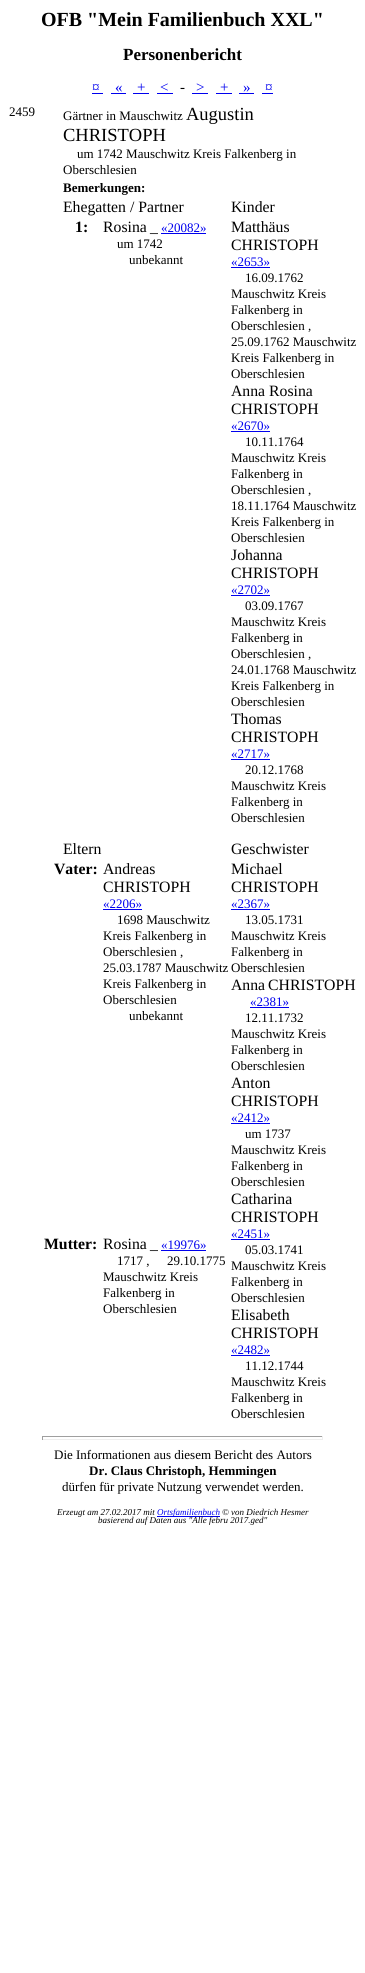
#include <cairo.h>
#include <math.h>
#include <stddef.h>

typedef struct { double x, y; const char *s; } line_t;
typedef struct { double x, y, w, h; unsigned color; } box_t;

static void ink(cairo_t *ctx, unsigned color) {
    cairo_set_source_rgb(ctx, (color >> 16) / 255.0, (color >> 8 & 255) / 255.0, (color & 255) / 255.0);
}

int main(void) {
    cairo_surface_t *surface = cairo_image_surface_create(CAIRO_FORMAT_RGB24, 365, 1973);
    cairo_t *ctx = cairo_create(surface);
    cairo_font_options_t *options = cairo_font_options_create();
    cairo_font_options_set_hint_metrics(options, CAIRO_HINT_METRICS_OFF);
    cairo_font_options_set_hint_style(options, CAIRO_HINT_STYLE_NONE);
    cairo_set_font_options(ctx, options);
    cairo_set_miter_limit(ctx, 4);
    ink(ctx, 0xFFFFFF);
    cairo_paint(ctx);
    cairo_select_font_face(ctx, "Liberation Serif", CAIRO_FONT_SLANT_NORMAL, CAIRO_FONT_WEIGHT_BOLD);
    cairo_set_font_size(ctx, 20);
    ink(ctx, 0x000000);
    cairo_move_to(ctx, 41, 26);
    cairo_show_text(ctx, "OFB \"Mein Familienbuch XXL\"");
    cairo_set_font_size(ctx, 17);
    cairo_move_to(ctx, 123, 60);
    cairo_show_text(ctx, "Personenbericht");
    cairo_select_font_face(ctx, "Liberation Serif", CAIRO_FONT_SLANT_NORMAL, CAIRO_FONT_WEIGHT_NORMAL);
    cairo_set_font_size(ctx, 15);
    ink(ctx, 0x0000EE);
    cairo_move_to(ctx, 92, 92);
    cairo_show_text(ctx, "¤");
    cairo_rectangle(ctx, 92, 93, 11, 1);
    cairo_fill(ctx);
    cairo_move_to(ctx, 115, 92);
    cairo_show_text(ctx, "«");
    cairo_rectangle(ctx, 111, 93, 15, 1);
    cairo_fill(ctx);
    cairo_move_to(ctx, 137, 92);
    cairo_show_text(ctx, "+");
    cairo_rectangle(ctx, 133, 93, 16, 1);
    cairo_fill(ctx);
    cairo_move_to(ctx, 160, 92);
    cairo_show_text(ctx, "<");
    cairo_rectangle(ctx, 157, 93, 16, 1);
    cairo_fill(ctx);
    ink(ctx, 0x000000);
    cairo_move_to(ctx, 180, 92);
    cairo_show_text(ctx, "-");
    ink(ctx, 0x0000EE);
    cairo_move_to(ctx, 196, 92);
    cairo_show_text(ctx, ">");
    cairo_rectangle(ctx, 192, 93, 16, 1);
    cairo_fill(ctx);
    cairo_move_to(ctx, 220, 92);
    cairo_show_text(ctx, "+");
    cairo_rectangle(ctx, 216, 93, 16, 1);
    cairo_fill(ctx);
    cairo_move_to(ctx, 243, 92);
    cairo_show_text(ctx, "»");
    cairo_rectangle(ctx, 239, 93, 15, 1);
    cairo_fill(ctx);
    cairo_move_to(ctx, 265, 92);
    cairo_show_text(ctx, "¤");
    cairo_rectangle(ctx, 262, 93, 11, 1);
    cairo_fill(ctx);
    cairo_set_font_size(ctx, 13);
    ink(ctx, 0x000000);
    cairo_move_to(ctx, 9, 116);
    cairo_show_text(ctx, "2459");
    cairo_move_to(ctx, 63, 120);
    cairo_show_text(ctx, "Gärtner in Mauschwitz");
    cairo_set_font_size(ctx, 18.5);
    cairo_move_to(ctx, 186, 120);
    cairo_show_text(ctx, "Augustin");
    cairo_move_to(ctx, 63, 141);
    cairo_show_text(ctx, "CHRISTOPH");
    cairo_set_font_size(ctx, 13);
    cairo_move_to(ctx, 77, 158);
    cairo_show_text(ctx, "um 1742 Mauschwitz Kreis Falkenberg in");
    cairo_move_to(ctx, 63, 174);
    cairo_show_text(ctx, "Oberschlesien");
    cairo_select_font_face(ctx, "Liberation Serif", CAIRO_FONT_SLANT_NORMAL, CAIRO_FONT_WEIGHT_BOLD);
    cairo_move_to(ctx, 63, 192);
    cairo_show_text(ctx, "Bemerkungen:");
    cairo_select_font_face(ctx, "Liberation Serif", CAIRO_FONT_SLANT_NORMAL, CAIRO_FONT_WEIGHT_NORMAL);
    cairo_set_font_size(ctx, 15.75);
    cairo_move_to(ctx, 63, 212);
    cairo_show_text(ctx, "Ehegatten / Partner");
    cairo_move_to(ctx, 231, 212);
    cairo_show_text(ctx, "Kinder");
    cairo_select_font_face(ctx, "Liberation Serif", CAIRO_FONT_SLANT_NORMAL, CAIRO_FONT_WEIGHT_BOLD);
    cairo_move_to(ctx, 75, 232);
    cairo_show_text(ctx, "1:");
    cairo_select_font_face(ctx, "Liberation Serif", CAIRO_FONT_SLANT_NORMAL, CAIRO_FONT_WEIGHT_NORMAL);
    cairo_move_to(ctx, 103, 232);
    cairo_show_text(ctx, "Rosina");
    cairo_set_font_size(ctx, 13);
    ink(ctx, 0x0000EE);
    cairo_move_to(ctx, 161, 232);
    cairo_show_text(ctx, "«20082»");
    cairo_rectangle(ctx, 161, 233, 45, 1);
    cairo_fill(ctx);
    cairo_set_font_size(ctx, 15.75);
    ink(ctx, 0x000000);
    cairo_move_to(ctx, 150, 232);
    cairo_show_text(ctx, "_");
    cairo_set_font_size(ctx, 13);
    cairo_move_to(ctx, 117, 248);
    cairo_show_text(ctx, "um 1742");
    cairo_move_to(ctx, 129, 264);
    cairo_show_text(ctx, "unbekannt");
    cairo_set_font_size(ctx, 15.75);
    cairo_move_to(ctx, 231, 232);
    cairo_show_text(ctx, "Matthäus");
    cairo_move_to(ctx, 231, 250);
    cairo_show_text(ctx, "CHRISTOPH");
    cairo_set_font_size(ctx, 13);
    ink(ctx, 0x0000EE);
    cairo_move_to(ctx, 231, 266);
    cairo_show_text(ctx, "«2653»");
    cairo_rectangle(ctx, 231, 267, 39, 1);
    cairo_fill(ctx);
    ink(ctx, 0x000000);
    {
        static const line_t items[] = {
            {245, 282, "16.09.1762"},
            {231, 298, "Mauschwitz Kreis"},
            {231, 314, "Falkenberg in"},
            {231, 330, "Oberschlesien ,"},
            {231, 346, "25.09.1762 Mauschwitz"},
            {231, 362, "Kreis Falkenberg in"},
            {231, 378, "Oberschlesien"},
        };
        for (size_t i = 0; i < sizeof items / sizeof *items; i++) {
            cairo_move_to(ctx, items[i].x, items[i].y);
            cairo_show_text(ctx, items[i].s);
        }
    }
    cairo_set_font_size(ctx, 15.75);
    cairo_move_to(ctx, 231, 396);
    cairo_show_text(ctx, "Anna Rosina");
    cairo_move_to(ctx, 231, 414);
    cairo_show_text(ctx, "CHRISTOPH");
    cairo_set_font_size(ctx, 13);
    ink(ctx, 0x0000EE);
    cairo_move_to(ctx, 231, 430);
    cairo_show_text(ctx, "«2670»");
    cairo_rectangle(ctx, 231, 431, 39, 1);
    cairo_fill(ctx);
    ink(ctx, 0x000000);
    {
        static const line_t items[] = {
            {245, 446, "10.11.1764"},
            {231, 462, "Mauschwitz Kreis"},
            {231, 478, "Falkenberg in"},
            {231, 494, "Oberschlesien ,"},
            {231, 510, "18.11.1764 Mauschwitz"},
            {231, 526, "Kreis Falkenberg in"},
            {231, 542, "Oberschlesien"},
        };
        for (size_t i = 0; i < sizeof items / sizeof *items; i++) {
            cairo_move_to(ctx, items[i].x, items[i].y);
            cairo_show_text(ctx, items[i].s);
        }
    }
    cairo_set_font_size(ctx, 15.75);
    cairo_move_to(ctx, 231, 560);
    cairo_show_text(ctx, "Johanna");
    cairo_move_to(ctx, 231, 578);
    cairo_show_text(ctx, "CHRISTOPH");
    cairo_set_font_size(ctx, 13);
    ink(ctx, 0x0000EE);
    cairo_move_to(ctx, 231, 594);
    cairo_show_text(ctx, "«2702»");
    cairo_rectangle(ctx, 231, 595, 39, 1);
    cairo_fill(ctx);
    ink(ctx, 0x000000);
    {
        static const line_t items[] = {
            {245, 610, "03.09.1767"},
            {231, 626, "Mauschwitz Kreis"},
            {231, 642, "Falkenberg in"},
            {231, 658, "Oberschlesien ,"},
            {231, 674, "24.01.1768 Mauschwitz"},
            {231, 690, "Kreis Falkenberg in"},
            {231, 706, "Oberschlesien"},
        };
        for (size_t i = 0; i < sizeof items / sizeof *items; i++) {
            cairo_move_to(ctx, items[i].x, items[i].y);
            cairo_show_text(ctx, items[i].s);
        }
    }
    cairo_set_font_size(ctx, 15.75);
    cairo_move_to(ctx, 231, 724);
    cairo_show_text(ctx, "Thomas");
    cairo_move_to(ctx, 231, 742);
    cairo_show_text(ctx, "CHRISTOPH");
    cairo_set_font_size(ctx, 13);
    ink(ctx, 0x0000EE);
    cairo_move_to(ctx, 231, 758);
    cairo_show_text(ctx, "«2717»");
    cairo_rectangle(ctx, 231, 759, 39, 1);
    cairo_fill(ctx);
    ink(ctx, 0x000000);
    {
        static const line_t items[] = {
            {245, 774, "20.12.1768"},
            {231, 790, "Mauschwitz Kreis"},
            {231, 806, "Falkenberg in"},
            {231, 822, "Oberschlesien"},
        };
        for (size_t i = 0; i < sizeof items / sizeof *items; i++) {
            cairo_move_to(ctx, items[i].x, items[i].y);
            cairo_show_text(ctx, items[i].s);
        }
    }
    cairo_set_font_size(ctx, 15.75);
    cairo_move_to(ctx, 63, 854);
    cairo_show_text(ctx, "Eltern");
    cairo_move_to(ctx, 231, 854);
    cairo_show_text(ctx, "Geschwister");
    cairo_select_font_face(ctx, "Liberation Serif", CAIRO_FONT_SLANT_NORMAL, CAIRO_FONT_WEIGHT_BOLD);
    cairo_move_to(ctx, 54, 874);
    cairo_show_text(ctx, "Vater:");
    cairo_select_font_face(ctx, "Liberation Serif", CAIRO_FONT_SLANT_NORMAL, CAIRO_FONT_WEIGHT_NORMAL);
    cairo_move_to(ctx, 103, 874);
    cairo_show_text(ctx, "Andreas");
    cairo_move_to(ctx, 103, 892);
    cairo_show_text(ctx, "CHRISTOPH");
    cairo_set_font_size(ctx, 13);
    ink(ctx, 0x0000EE);
    cairo_move_to(ctx, 103, 908);
    cairo_show_text(ctx, "«2206»");
    cairo_rectangle(ctx, 103, 909, 39, 1);
    cairo_fill(ctx);
    ink(ctx, 0x000000);
    {
        static const line_t items[] = {
            {117, 924, "1698 Mauschwitz"},
            {103, 940, "Kreis Falkenberg in"},
            {103, 956, "Oberschlesien ,"},
            {103, 972, "25.03.1787 Mauschwitz"},
            {103, 988, "Kreis Falkenberg in"},
            {103, 1004, "Oberschlesien"},
            {129, 1020, "unbekannt"},
        };
        for (size_t i = 0; i < sizeof items / sizeof *items; i++) {
            cairo_move_to(ctx, items[i].x, items[i].y);
            cairo_show_text(ctx, items[i].s);
        }
    }
    cairo_set_font_size(ctx, 15.75);
    cairo_move_to(ctx, 231, 874);
    cairo_show_text(ctx, "Michael");
    cairo_move_to(ctx, 231, 892);
    cairo_show_text(ctx, "CHRISTOPH");
    cairo_set_font_size(ctx, 13);
    ink(ctx, 0x0000EE);
    cairo_move_to(ctx, 231, 908);
    cairo_show_text(ctx, "«2367»");
    cairo_rectangle(ctx, 231, 909, 39, 1);
    cairo_fill(ctx);
    ink(ctx, 0x000000);
    {
        static const line_t items[] = {
            {245, 924, "13.05.1731"},
            {231, 940, "Mauschwitz Kreis"},
            {231, 956, "Falkenberg in"},
            {231, 972, "Oberschlesien"},
        };
        for (size_t i = 0; i < sizeof items / sizeof *items; i++) {
            cairo_move_to(ctx, items[i].x, items[i].y);
            cairo_show_text(ctx, items[i].s);
        }
    }
    cairo_set_font_size(ctx, 15.75);
    cairo_move_to(ctx, 231, 990);
    cairo_show_text(ctx, "Anna");
    cairo_move_to(ctx, 268, 990);
    cairo_show_text(ctx, "CHRISTOPH");
    cairo_set_font_size(ctx, 13);
    ink(ctx, 0x0000EE);
    cairo_move_to(ctx, 250, 1006);
    cairo_show_text(ctx, "«2381»");
    cairo_rectangle(ctx, 250, 1007, 39, 1);
    cairo_fill(ctx);
    ink(ctx, 0x000000);
    {
        static const line_t items[] = {
            {245, 1022, "12.11.1732"},
            {231, 1038, "Mauschwitz Kreis"},
            {231, 1054, "Falkenberg in"},
            {231, 1070, "Oberschlesien"},
        };
        for (size_t i = 0; i < sizeof items / sizeof *items; i++) {
            cairo_move_to(ctx, items[i].x, items[i].y);
            cairo_show_text(ctx, items[i].s);
        }
    }
    cairo_set_font_size(ctx, 15.75);
    cairo_move_to(ctx, 231, 1088);
    cairo_show_text(ctx, "Anton");
    cairo_move_to(ctx, 231, 1106);
    cairo_show_text(ctx, "CHRISTOPH");
    cairo_set_font_size(ctx, 13);
    ink(ctx, 0x0000EE);
    cairo_move_to(ctx, 231, 1122);
    cairo_show_text(ctx, "«2412»");
    cairo_rectangle(ctx, 231, 1123, 39, 1);
    cairo_fill(ctx);
    ink(ctx, 0x000000);
    {
        static const line_t items[] = {
            {245, 1138, "um 1737"},
            {231, 1154, "Mauschwitz Kreis"},
            {231, 1170, "Falkenberg in"},
            {231, 1186, "Oberschlesien"},
        };
        for (size_t i = 0; i < sizeof items / sizeof *items; i++) {
            cairo_move_to(ctx, items[i].x, items[i].y);
            cairo_show_text(ctx, items[i].s);
        }
    }
    cairo_set_font_size(ctx, 15.75);
    cairo_move_to(ctx, 231, 1204);
    cairo_show_text(ctx, "Catharina");
    cairo_move_to(ctx, 231, 1222);
    cairo_show_text(ctx, "CHRISTOPH");
    cairo_set_font_size(ctx, 13);
    ink(ctx, 0x0000EE);
    cairo_move_to(ctx, 231, 1238);
    cairo_show_text(ctx, "«2451»");
    cairo_rectangle(ctx, 231, 1239, 39, 1);
    cairo_fill(ctx);
    ink(ctx, 0x000000);
    {
        static const line_t items[] = {
            {245, 1254, "05.03.1741"},
            {231, 1270, "Mauschwitz Kreis"},
            {231, 1286, "Falkenberg in"},
            {231, 1302, "Oberschlesien"},
        };
        for (size_t i = 0; i < sizeof items / sizeof *items; i++) {
            cairo_move_to(ctx, items[i].x, items[i].y);
            cairo_show_text(ctx, items[i].s);
        }
    }
    cairo_set_font_size(ctx, 15.75);
    cairo_move_to(ctx, 231, 1320);
    cairo_show_text(ctx, "Elisabeth");
    cairo_move_to(ctx, 231, 1338);
    cairo_show_text(ctx, "CHRISTOPH");
    cairo_set_font_size(ctx, 13);
    ink(ctx, 0x0000EE);
    cairo_move_to(ctx, 231, 1354);
    cairo_show_text(ctx, "«2482»");
    cairo_rectangle(ctx, 231, 1355, 39, 1);
    cairo_fill(ctx);
    ink(ctx, 0x000000);
    {
        static const line_t items[] = {
            {245, 1370, "11.12.1744"},
            {231, 1386, "Mauschwitz Kreis"},
            {231, 1402, "Falkenberg in"},
            {231, 1418, "Oberschlesien"},
        };
        for (size_t i = 0; i < sizeof items / sizeof *items; i++) {
            cairo_move_to(ctx, items[i].x, items[i].y);
            cairo_show_text(ctx, items[i].s);
        }
    }
    cairo_select_font_face(ctx, "Liberation Serif", CAIRO_FONT_SLANT_NORMAL, CAIRO_FONT_WEIGHT_BOLD);
    cairo_set_font_size(ctx, 15.75);
    cairo_move_to(ctx, 44, 1249);
    cairo_show_text(ctx, "Mutter:");
    cairo_select_font_face(ctx, "Liberation Serif", CAIRO_FONT_SLANT_NORMAL, CAIRO_FONT_WEIGHT_NORMAL);
    cairo_move_to(ctx, 103, 1249);
    cairo_show_text(ctx, "Rosina");
    cairo_set_font_size(ctx, 13);
    ink(ctx, 0x0000EE);
    cairo_move_to(ctx, 161, 1249);
    cairo_show_text(ctx, "«19976»");
    cairo_rectangle(ctx, 161, 1250, 45, 1);
    cairo_fill(ctx);
    cairo_set_font_size(ctx, 15.75);
    ink(ctx, 0x000000);
    cairo_move_to(ctx, 150, 1249);
    cairo_show_text(ctx, "_");
    cairo_set_font_size(ctx, 13);
    {
        static const line_t items[] = {
            {117, 1265, "1717 ,"},
            {167, 1265, "29.10.1775"},
            {103, 1281, "Mauschwitz Kreis"},
            {103, 1297, "Falkenberg in"},
            {103, 1313, "Oberschlesien"},
        };
        for (size_t i = 0; i < sizeof items / sizeof *items; i++) {
            cairo_move_to(ctx, items[i].x, items[i].y);
            cairo_show_text(ctx, items[i].s);
        }
    }
    {
        static const box_t items[] = {
            {42, 1436, 281, 1, 0x9F9F9F},
            {322, 1436, 1, 4, 0xEEEEEE},
            {42, 1439, 281, 1, 0xEEEEEE},
            {42, 1436, 1, 4, 0x9F9F9F},
        };
        for (size_t i = 0; i < sizeof items / sizeof *items; i++) {
            ink(ctx, items[i].color);
            cairo_rectangle(ctx, items[i].x, items[i].y, items[i].w, items[i].h);
            cairo_fill(ctx);
        }
    }
    ink(ctx, 0x000000);
    cairo_move_to(ctx, 54, 1459);
    cairo_show_text(ctx, "Die Informationen aus diesem Bericht des Autors");
    cairo_select_font_face(ctx, "Liberation Serif", CAIRO_FONT_SLANT_NORMAL, CAIRO_FONT_WEIGHT_BOLD);
    cairo_move_to(ctx, 89, 1475);
    cairo_show_text(ctx, "Dr. Claus Christoph, Hemmingen");
    cairo_select_font_face(ctx, "Liberation Serif", CAIRO_FONT_SLANT_NORMAL, CAIRO_FONT_WEIGHT_NORMAL);
    cairo_move_to(ctx, 62, 1491);
    cairo_show_text(ctx, "dürfen für private Nutzung verwendet werden.");
    cairo_select_font_face(ctx, "Liberation Serif", CAIRO_FONT_SLANT_ITALIC, CAIRO_FONT_WEIGHT_NORMAL);
    cairo_set_font_size(ctx, 9);
    cairo_move_to(ctx, 57, 1515);
    cairo_show_text(ctx, "Erzeugt am 27.02.2017 mit");
    ink(ctx, 0x0000EE);
    cairo_rectangle(ctx, 157, 1516, 63, 1);
    cairo_fill(ctx);
    cairo_move_to(ctx, 157, 1515);
    cairo_show_text(ctx, "Ortsfamilienbuch");
    ink(ctx, 0x000000);
    cairo_move_to(ctx, 222, 1515);
    cairo_show_text(ctx, "© von Diedrich Hesmer");
    cairo_move_to(ctx, 98, 1523);
    cairo_show_text(ctx, "basierend auf Daten aus \"Alle febru 2017.ged\"");
    cairo_surface_write_to_png(surface, "image.png");
    cairo_font_options_destroy(options);
    cairo_destroy(ctx);
    cairo_surface_destroy(surface);
    return 0;
}
